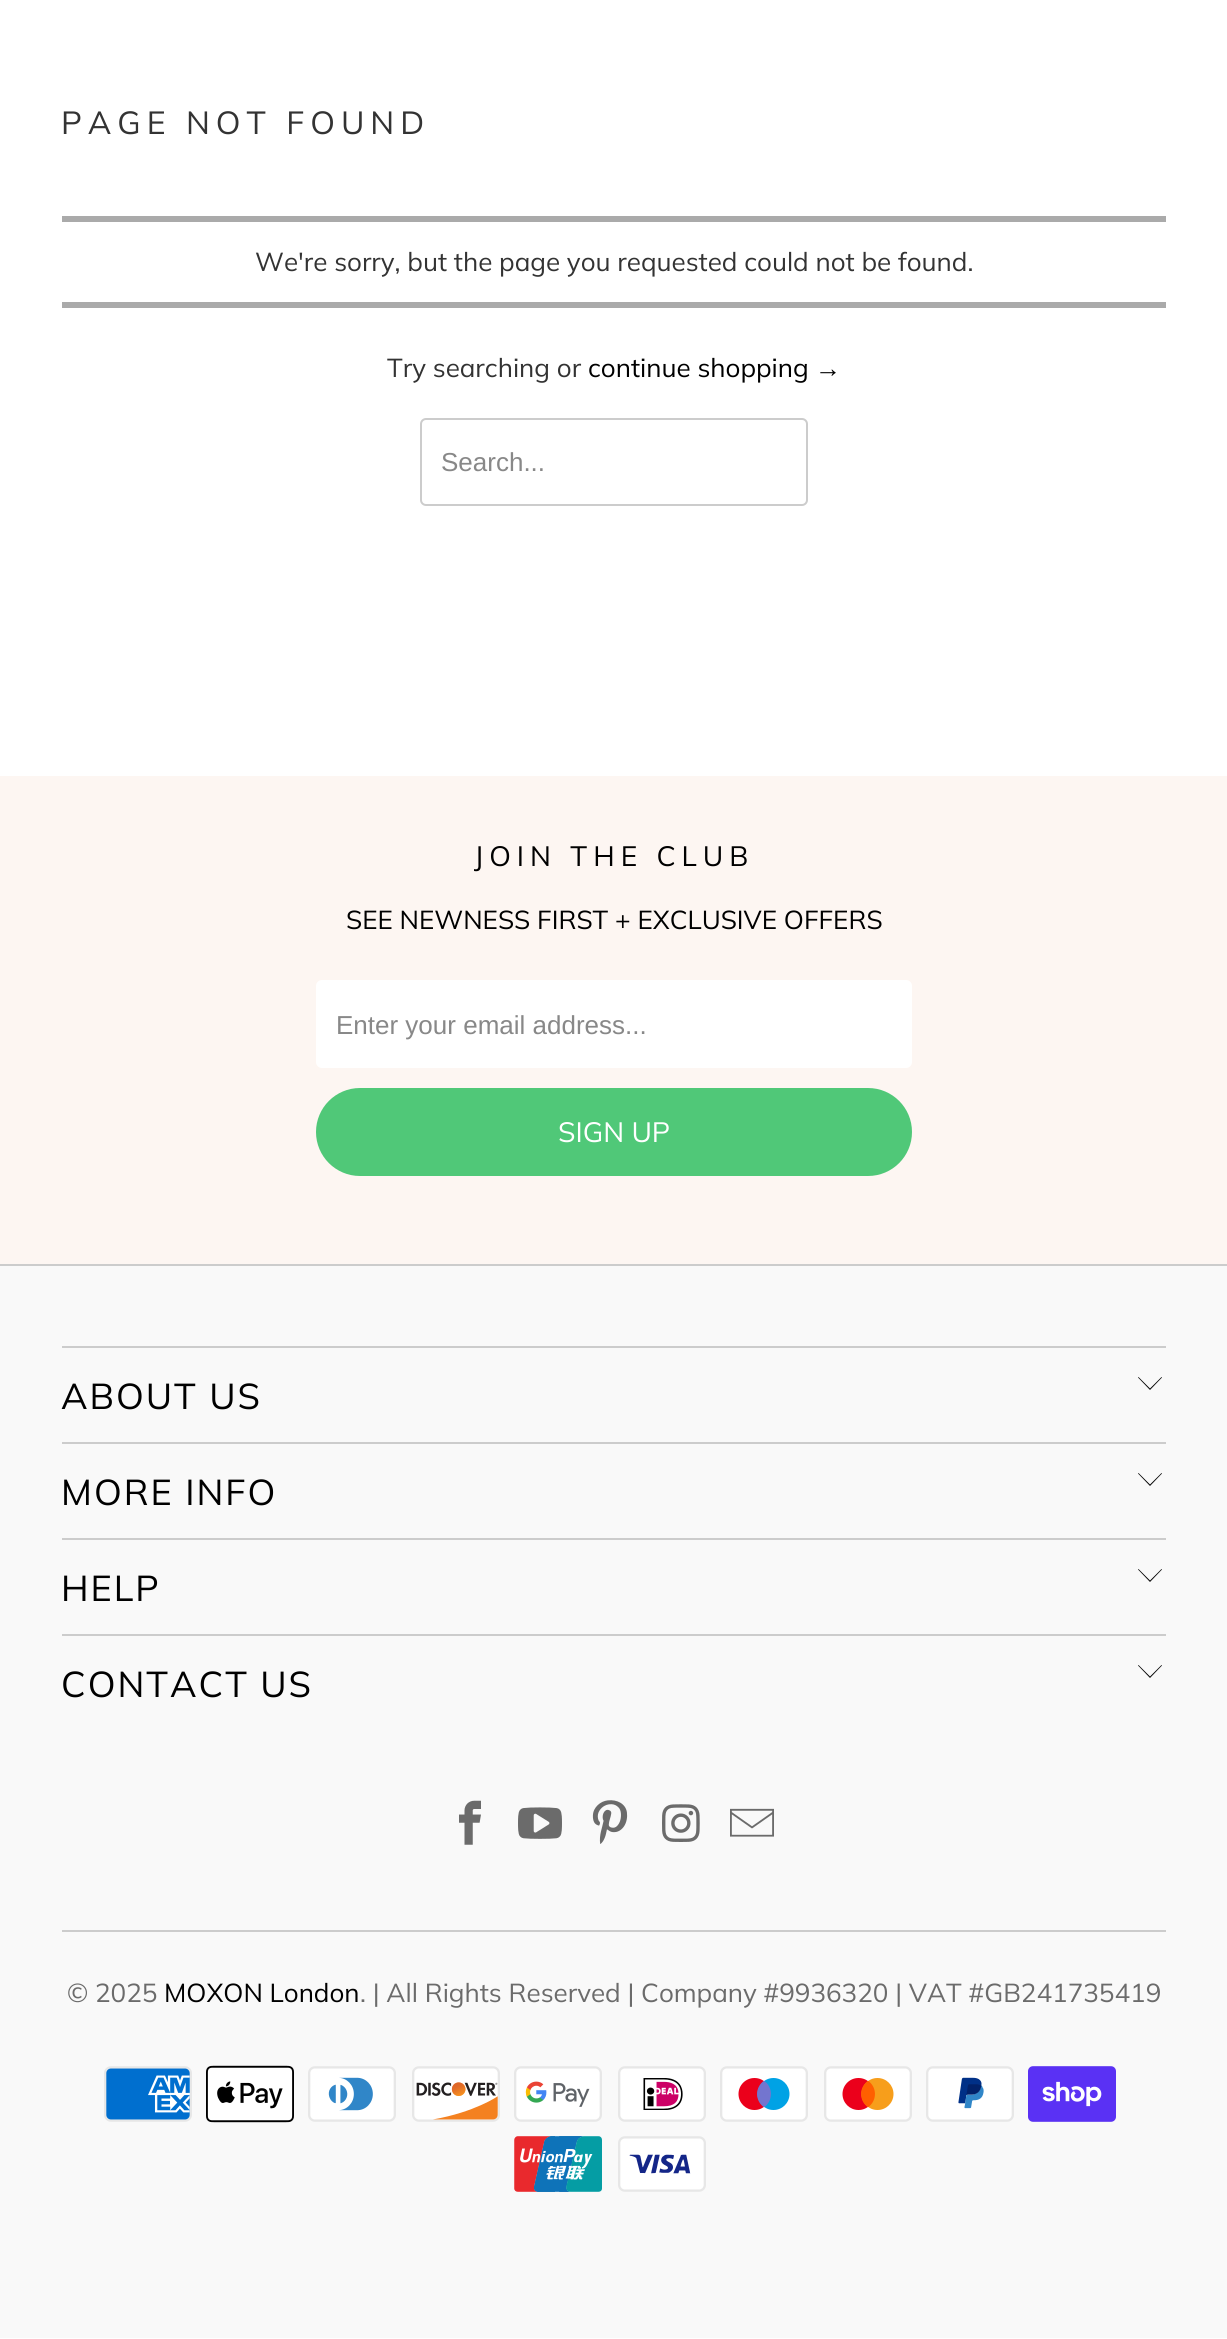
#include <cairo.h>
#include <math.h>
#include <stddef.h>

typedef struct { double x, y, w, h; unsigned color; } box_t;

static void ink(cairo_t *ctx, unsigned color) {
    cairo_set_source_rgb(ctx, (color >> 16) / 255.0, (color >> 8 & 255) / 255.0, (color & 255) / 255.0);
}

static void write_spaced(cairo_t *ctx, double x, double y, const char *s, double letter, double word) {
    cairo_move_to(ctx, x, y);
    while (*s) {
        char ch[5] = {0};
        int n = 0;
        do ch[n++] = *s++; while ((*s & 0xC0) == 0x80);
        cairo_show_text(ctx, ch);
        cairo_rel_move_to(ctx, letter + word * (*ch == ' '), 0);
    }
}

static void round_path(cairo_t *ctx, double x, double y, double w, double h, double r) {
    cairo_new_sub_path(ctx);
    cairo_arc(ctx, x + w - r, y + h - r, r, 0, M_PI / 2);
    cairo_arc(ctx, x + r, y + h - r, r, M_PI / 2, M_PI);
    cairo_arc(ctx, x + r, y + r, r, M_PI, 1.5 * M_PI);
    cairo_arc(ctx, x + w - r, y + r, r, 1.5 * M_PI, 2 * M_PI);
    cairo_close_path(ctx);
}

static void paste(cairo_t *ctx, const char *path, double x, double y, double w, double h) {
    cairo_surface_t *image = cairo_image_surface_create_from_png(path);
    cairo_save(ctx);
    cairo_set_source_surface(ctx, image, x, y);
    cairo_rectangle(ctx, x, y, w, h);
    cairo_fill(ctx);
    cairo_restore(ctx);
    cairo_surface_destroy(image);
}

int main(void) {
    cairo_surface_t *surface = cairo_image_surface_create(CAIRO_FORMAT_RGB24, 1227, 2339);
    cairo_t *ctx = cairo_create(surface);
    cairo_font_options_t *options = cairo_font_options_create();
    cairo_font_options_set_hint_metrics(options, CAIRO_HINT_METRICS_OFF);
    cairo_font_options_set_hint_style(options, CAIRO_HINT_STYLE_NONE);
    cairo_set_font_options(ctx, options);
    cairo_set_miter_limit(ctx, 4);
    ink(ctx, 0xFFFFFF);
    cairo_paint(ctx);
    cairo_select_font_face(ctx, "Muli", CAIRO_FONT_SLANT_NORMAL, CAIRO_FONT_WEIGHT_NORMAL);
    cairo_set_font_size(ctx, 32);
    ink(ctx, 0x333333);
    write_spaced(ctx, 61, 134, "PAGE NOT FOUND", 6, 0);
    ink(ctx, 0xAAAAAA);
    cairo_rectangle(ctx, 62, 216, 1104, 6);
    cairo_fill(ctx);
    cairo_rectangle(ctx, 62, 302, 1104, 6);
    cairo_fill(ctx);
    cairo_set_font_size(ctx, 26);
    ink(ctx, 0x333333);
    cairo_move_to(ctx, 255, 271);
    cairo_show_text(ctx, "We're sorry, but the page you requested could not be found.");
    cairo_move_to(ctx, 387, 377);
    cairo_show_text(ctx, "Try searching or");
    ink(ctx, 0x000000);
    cairo_move_to(ctx, 588, 377);
    cairo_show_text(ctx, "continue shopping");
    cairo_select_font_face(ctx, "Liberation Sans", CAIRO_FONT_SLANT_NORMAL, CAIRO_FONT_WEIGHT_NORMAL);
    cairo_move_to(ctx, 815, 377);
    cairo_show_text(ctx, "→");
    round_path(ctx, 421, 419, 386, 86, 5);
    ink(ctx, 0xCCCCCC);
    cairo_stroke(ctx);
    ink(ctx, 0x888888);
    cairo_move_to(ctx, 441, 471);
    cairo_show_text(ctx, "Search...");
    ink(ctx, 0xFDF6F2);
    cairo_rectangle(ctx, 0, 776, 1227, 488);
    cairo_fill(ctx);
    cairo_select_font_face(ctx, "Muli", CAIRO_FONT_SLANT_NORMAL, CAIRO_FONT_WEIGHT_NORMAL);
    cairo_set_font_size(ctx, 28);
    ink(ctx, 0x000000);
    write_spaced(ctx, 474, 866, "JOIN THE CLUB", 6, 0);
    cairo_set_font_size(ctx, 26);
    cairo_move_to(ctx, 346, 929);
    cairo_show_text(ctx, "SEE NEWNESS FIRST + EXCLUSIVE OFFERS");
    ink(ctx, 0xFFFFFF);
    round_path(ctx, 316, 980, 596, 88, 6);
    cairo_fill(ctx);
    cairo_select_font_face(ctx, "Liberation Sans", CAIRO_FONT_SLANT_NORMAL, CAIRO_FONT_WEIGHT_NORMAL);
    ink(ctx, 0x888888);
    cairo_move_to(ctx, 336, 1034);
    cairo_show_text(ctx, "Enter your email address...");
    ink(ctx, 0x50C878);
    round_path(ctx, 317, 1089, 594, 86, 43);
    cairo_fill_preserve(ctx);
    cairo_stroke(ctx);
    cairo_select_font_face(ctx, "Muli", CAIRO_FONT_SLANT_NORMAL, CAIRO_FONT_WEIGHT_NORMAL);
    cairo_set_font_size(ctx, 28);
    ink(ctx, 0xFFFFFF);
    cairo_move_to(ctx, 558, 1142);
    cairo_show_text(ctx, "SIGN UP");
    {
        static const box_t items[] = {
            {0, 1266, 1227, 1072, 0xF9F9F9},
            {0, 1264, 1227, 2, 0xCCCCCC},
            {62, 1346, 1104, 2, 0xCCCCCC},
        };
        for (size_t i = 0; i < sizeof items / sizeof *items; i++) {
            ink(ctx, items[i].color);
            cairo_rectangle(ctx, items[i].x, items[i].y, items[i].w, items[i].h);
            cairo_fill(ctx);
        }
    }
    cairo_set_font_size(ctx, 36);
    ink(ctx, 0x000000);
    write_spaced(ctx, 61, 1409, "ABOUT US", 2, 0);
    ink(ctx, 0x040404);
    cairo_new_path(ctx);
    cairo_move_to(ctx, 1150, 1390);
    cairo_line_to(ctx, 1138, 1377.5);
    cairo_line_to(ctx, 1138.5, 1377);
    cairo_line_to(ctx, 1150, 1388.5);
    cairo_line_to(ctx, 1161.5, 1377);
    cairo_line_to(ctx, 1162, 1377.5);
    cairo_close_path(ctx);
    cairo_fill(ctx);
    ink(ctx, 0xCCCCCC);
    cairo_rectangle(ctx, 62, 1442, 1104, 2);
    cairo_fill(ctx);
    ink(ctx, 0x000000);
    write_spaced(ctx, 61, 1505, "MORE INFO", 2, 0);
    ink(ctx, 0x040404);
    cairo_new_path(ctx);
    cairo_move_to(ctx, 1150, 1486);
    cairo_line_to(ctx, 1138, 1473.5);
    cairo_line_to(ctx, 1138.5, 1473);
    cairo_line_to(ctx, 1150, 1484.5);
    cairo_line_to(ctx, 1161.5, 1473);
    cairo_line_to(ctx, 1162, 1473.5);
    cairo_close_path(ctx);
    cairo_fill(ctx);
    ink(ctx, 0xCCCCCC);
    cairo_rectangle(ctx, 62, 1538, 1104, 2);
    cairo_fill(ctx);
    ink(ctx, 0x000000);
    write_spaced(ctx, 61, 1601, "HELP", 2, 0);
    ink(ctx, 0x040404);
    cairo_new_path(ctx);
    cairo_move_to(ctx, 1150, 1582);
    cairo_line_to(ctx, 1138, 1569.5);
    cairo_line_to(ctx, 1138.5, 1569);
    cairo_line_to(ctx, 1150, 1580.5);
    cairo_line_to(ctx, 1161.5, 1569);
    cairo_line_to(ctx, 1162, 1569.5);
    cairo_close_path(ctx);
    cairo_fill(ctx);
    ink(ctx, 0xCCCCCC);
    cairo_rectangle(ctx, 62, 1634, 1104, 2);
    cairo_fill(ctx);
    ink(ctx, 0x000000);
    write_spaced(ctx, 61, 1697, "CONTACT US", 2, 0);
    ink(ctx, 0x040404);
    cairo_new_path(ctx);
    cairo_move_to(ctx, 1150, 1678);
    cairo_line_to(ctx, 1138, 1665.5);
    cairo_line_to(ctx, 1138.5, 1665);
    cairo_line_to(ctx, 1150, 1676.5);
    cairo_line_to(ctx, 1161.5, 1665);
    cairo_line_to(ctx, 1162, 1665.5);
    cairo_close_path(ctx);
    cairo_fill(ctx);
    paste(ctx, "media/1.png", 459, 1800, 22, 45);
    paste(ctx, "media/2.png", 518, 1807, 44, 32);
    paste(ctx, "media/3.png", 592, 1800, 36, 44);
    paste(ctx, "media/4.png", 662, 1804, 38, 38);
    paste(ctx, "media/5.png", 730, 1808, 44, 29);
    ink(ctx, 0xCCCCCC);
    cairo_rectangle(ctx, 62, 1930, 1104, 2);
    cairo_fill(ctx);
    cairo_set_font_size(ctx, 26);
    ink(ctx, 0x6B6B6B);
    cairo_move_to(ctx, 67, 2002);
    cairo_show_text(ctx, "© 2025");
    ink(ctx, 0x000000);
    cairo_move_to(ctx, 164, 2002);
    cairo_show_text(ctx, "MOXON London");
    ink(ctx, 0x6B6B6B);
    cairo_move_to(ctx, 360, 2002);
    cairo_show_text(ctx, ". | All Rights Reserved | Company #9936320 | VAT #GB241735419");
    paste(ctx, "media/6.png", 104, 2066, 88, 56);
    paste(ctx, "media/7.png", 206, 2065, 88, 58);
    paste(ctx, "media/8.png", 308, 2066, 88, 56);
    paste(ctx, "media/9.png", 412, 2066, 88, 56);
    paste(ctx, "media/10.png", 514, 2066, 88, 56);
    paste(ctx, "media/11.png", 618, 2066, 88, 56);
    paste(ctx, "media/12.png", 720, 2066, 88, 56);
    paste(ctx, "media/13.png", 824, 2066, 88, 56);
    paste(ctx, "media/14.png", 926, 2066, 88, 56);
    paste(ctx, "media/15.png", 1028, 2066, 88, 56);
    paste(ctx, "media/16.png", 514, 2136, 88, 56);
    paste(ctx, "media/17.png", 618, 2136, 88, 56);
    cairo_surface_write_to_png(surface, "image.png");
    cairo_font_options_destroy(options);
    cairo_destroy(ctx);
    cairo_surface_destroy(surface);
    return 0;
}
